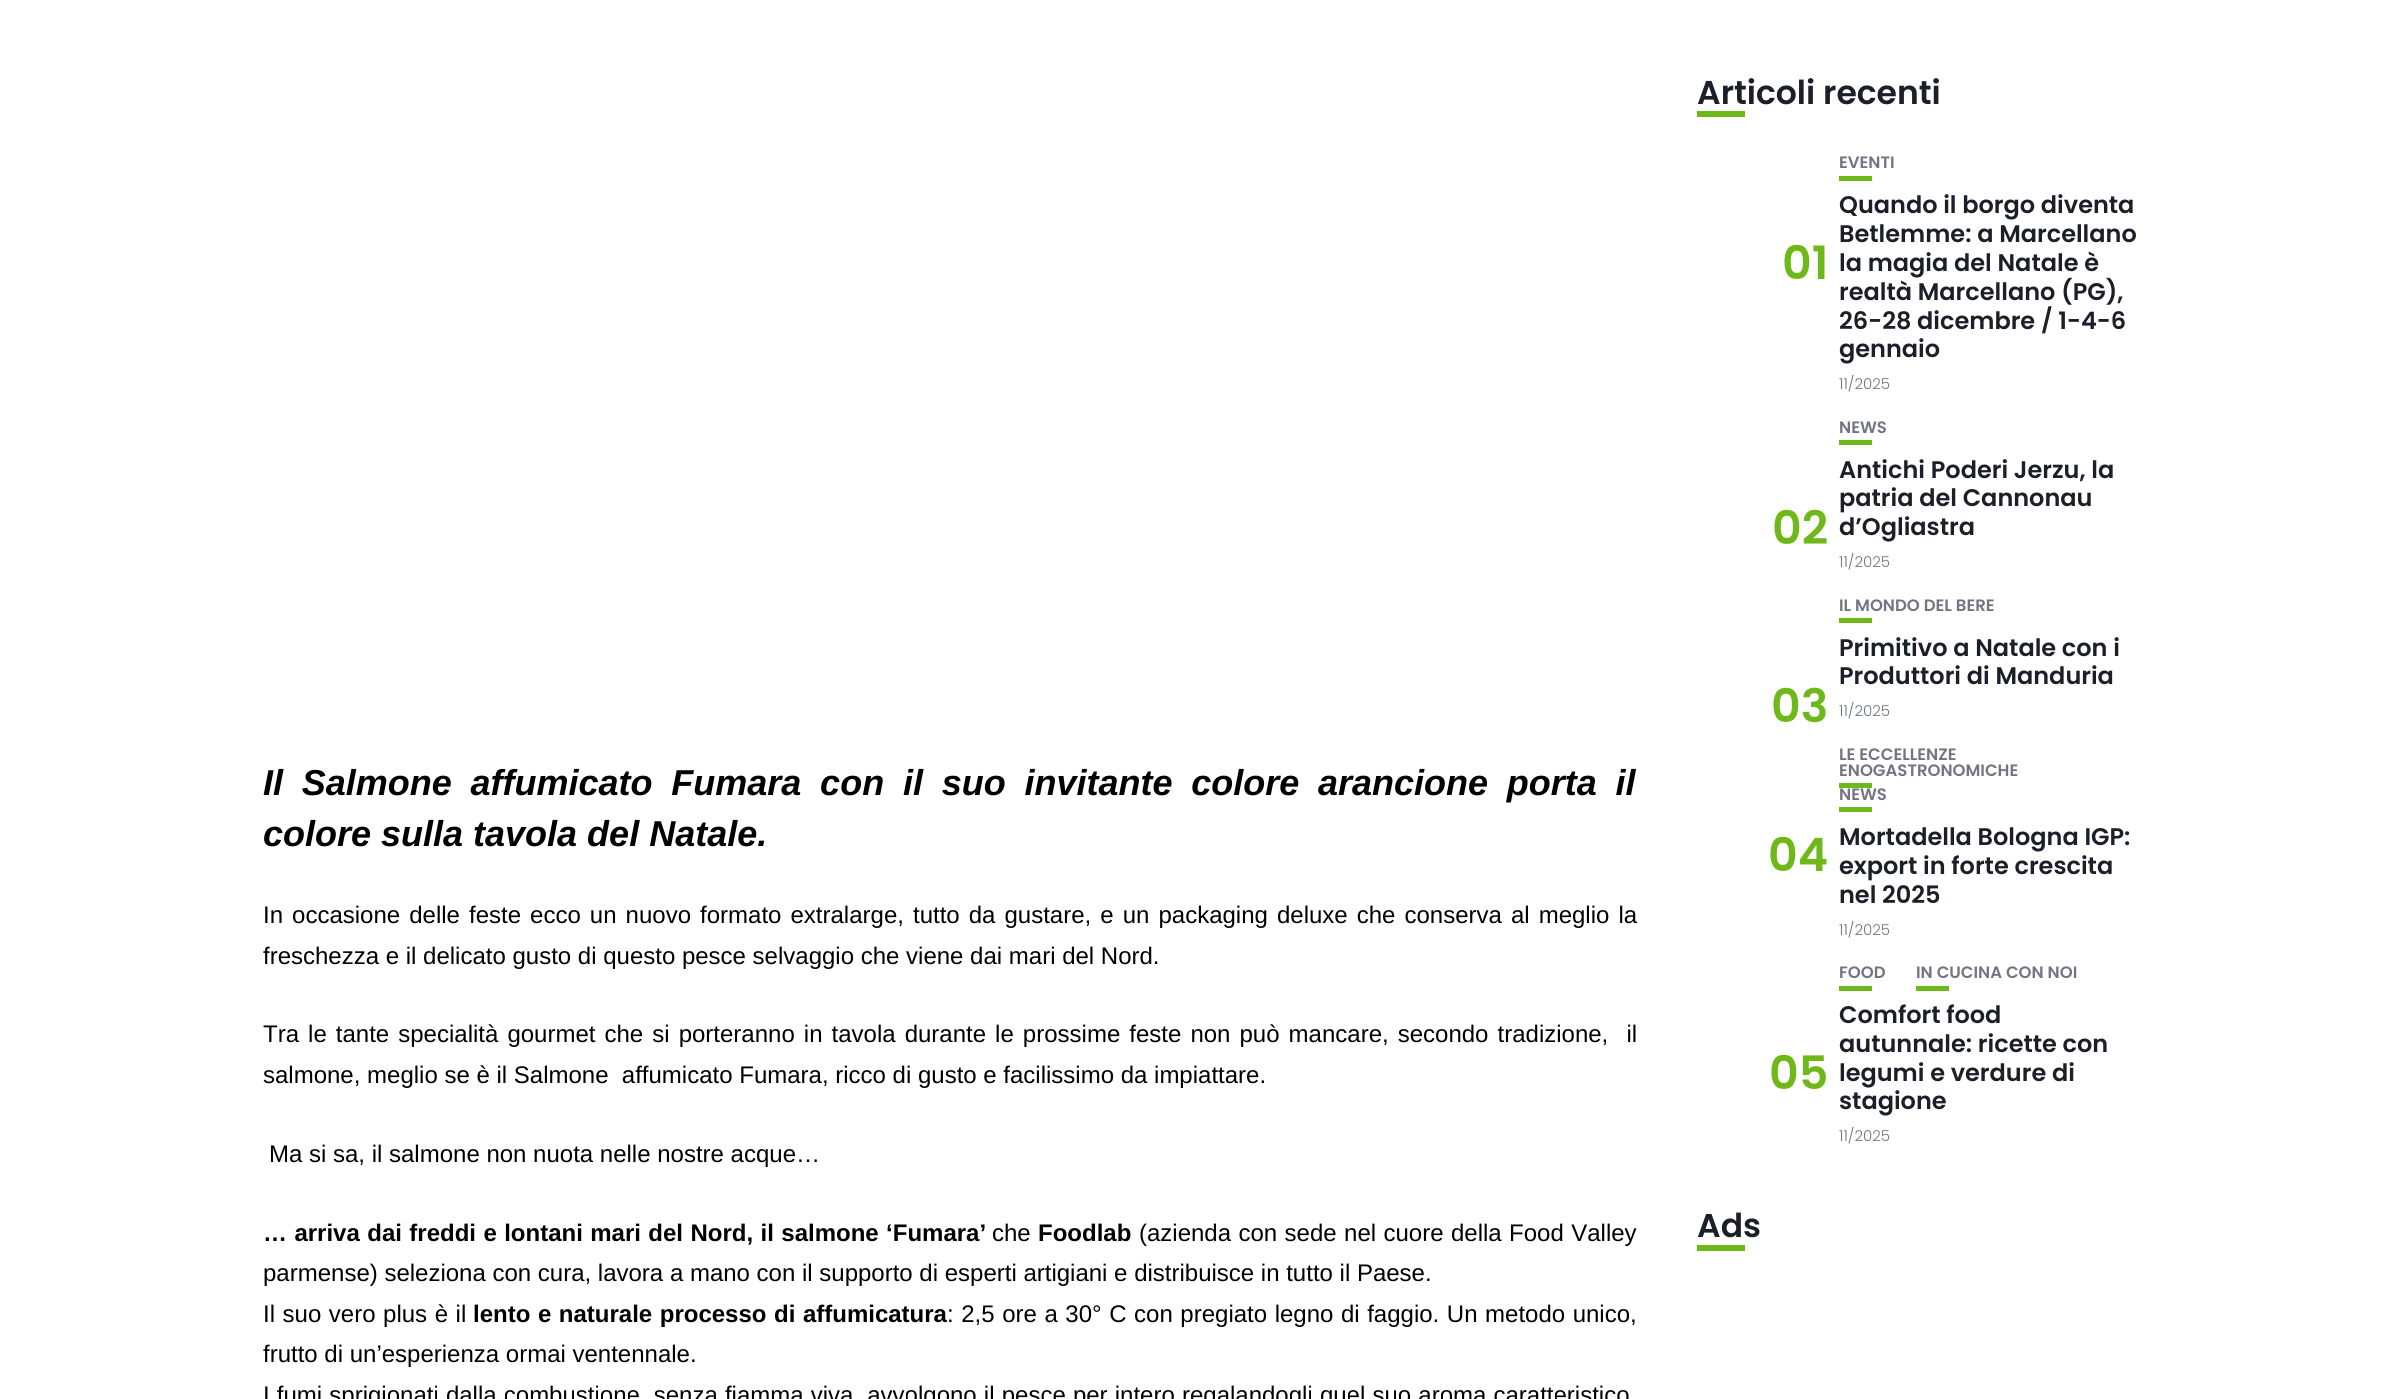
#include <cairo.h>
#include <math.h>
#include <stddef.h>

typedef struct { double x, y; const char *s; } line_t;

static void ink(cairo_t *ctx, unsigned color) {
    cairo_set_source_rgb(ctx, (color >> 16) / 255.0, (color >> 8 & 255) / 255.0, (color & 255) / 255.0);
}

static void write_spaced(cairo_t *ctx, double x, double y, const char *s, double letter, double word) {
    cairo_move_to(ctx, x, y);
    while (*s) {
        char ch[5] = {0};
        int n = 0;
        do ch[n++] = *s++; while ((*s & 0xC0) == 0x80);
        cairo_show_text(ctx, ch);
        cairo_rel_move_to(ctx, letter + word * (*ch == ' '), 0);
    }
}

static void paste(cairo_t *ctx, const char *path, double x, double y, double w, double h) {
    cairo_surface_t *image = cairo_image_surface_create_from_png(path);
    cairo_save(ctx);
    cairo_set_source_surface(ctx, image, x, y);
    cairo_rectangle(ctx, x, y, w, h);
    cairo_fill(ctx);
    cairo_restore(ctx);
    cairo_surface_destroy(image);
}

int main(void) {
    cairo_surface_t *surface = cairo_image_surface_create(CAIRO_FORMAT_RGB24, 2400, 1399);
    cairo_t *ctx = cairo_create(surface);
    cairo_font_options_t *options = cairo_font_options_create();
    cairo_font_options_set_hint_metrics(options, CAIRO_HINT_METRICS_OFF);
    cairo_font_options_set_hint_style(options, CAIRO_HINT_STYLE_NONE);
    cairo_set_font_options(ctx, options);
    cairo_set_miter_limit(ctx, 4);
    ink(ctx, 0xFFFFFF);
    cairo_paint(ctx);
    paste(ctx, "media/1.png", 262, 0, 1, 366);
    cairo_select_font_face(ctx, "Liberation Sans", CAIRO_FONT_SLANT_ITALIC, CAIRO_FONT_WEIGHT_BOLD);
    cairo_set_font_size(ctx, 36);
    ink(ctx, 0x000000);
    write_spaced(ctx, 263, 795, "Il Salmone affumicato Fumara con il suo invitante colore arancione porta il", 0, 8.75);
    cairo_move_to(ctx, 263, 846);
    cairo_show_text(ctx, "colore sulla tavola del Natale.");
    cairo_select_font_face(ctx, "Liberation Sans", CAIRO_FONT_SLANT_NORMAL, CAIRO_FONT_WEIGHT_NORMAL);
    cairo_set_font_size(ctx, 24);
    write_spaced(ctx, 263, 923, "In occasione delle feste ecco un nuovo formato extralarge, tutto da gustare, e un packaging deluxe che conserva al meglio la", 0, 2.4);
    cairo_move_to(ctx, 263, 964);
    cairo_show_text(ctx, "freschezza e il delicato gusto di questo pesce selvaggio che viene dai mari del Nord.");
    write_spaced(ctx, 263, 1042, "Tra le tante specialità gourmet che si porteranno in tavola durante le prossime feste non può mancare, secondo tradizione,  il", 0, 2.4);
    cairo_move_to(ctx, 263, 1083);
    cairo_show_text(ctx, "salmone, meglio se è il Salmone  affumicato Fumara, ricco di gusto e facilissimo da impiattare.");
    cairo_move_to(ctx, 269, 1162);
    cairo_show_text(ctx, "Ma si sa, il salmone non nuota nelle nostre acque…");
    cairo_select_font_face(ctx, "Liberation Sans", CAIRO_FONT_SLANT_NORMAL, CAIRO_FONT_WEIGHT_BOLD);
    write_spaced(ctx, 263, 1241, "… arriva dai freddi e lontani mari del Nord, il salmone ‘Fumara’", 0, 0.75);
    cairo_select_font_face(ctx, "Liberation Sans", CAIRO_FONT_SLANT_NORMAL, CAIRO_FONT_WEIGHT_NORMAL);
    cairo_move_to(ctx, 992, 1241);
    cairo_show_text(ctx, "che");
    cairo_select_font_face(ctx, "Liberation Sans", CAIRO_FONT_SLANT_NORMAL, CAIRO_FONT_WEIGHT_BOLD);
    cairo_move_to(ctx, 1038, 1241);
    cairo_show_text(ctx, "Foodlab");
    cairo_select_font_face(ctx, "Liberation Sans", CAIRO_FONT_SLANT_NORMAL, CAIRO_FONT_WEIGHT_NORMAL);
    write_spaced(ctx, 1139, 1241, "(azienda con sede nel cuore della Food Valley", 0, 0.75);
    cairo_move_to(ctx, 263, 1281);
    cairo_show_text(ctx, "parmense) seleziona con cura, lavora a mano con il supporto di esperti artigiani e distribuisce in tutto il Paese.");
    write_spaced(ctx, 263, 1322, "Il suo vero plus è il", 0, 0.9);
    cairo_select_font_face(ctx, "Liberation Sans", CAIRO_FONT_SLANT_NORMAL, CAIRO_FONT_WEIGHT_BOLD);
    write_spaced(ctx, 473, 1322, "lento e naturale processo di affumicatura", 0, 0.9);
    cairo_select_font_face(ctx, "Liberation Sans", CAIRO_FONT_SLANT_NORMAL, CAIRO_FONT_WEIGHT_NORMAL);
    write_spaced(ctx, 947, 1322, ": 2,5 ore a 30° C con pregiato legno di faggio. Un metodo unico,", 0, 0.9);
    cairo_move_to(ctx, 263, 1362);
    cairo_show_text(ctx, "frutto di un’esperienza ormai ventennale.");
    write_spaced(ctx, 263, 1403, "I fumi sprigionati dalla combustione, senza fiamma viva, avvolgono il pesce per intero regalandogli quel suo aroma caratteristico", 0, 0.5);
    cairo_select_font_face(ctx, "Poppins SemiBold", CAIRO_FONT_SLANT_NORMAL, CAIRO_FONT_WEIGHT_NORMAL);
    cairo_set_font_size(ctx, 33);
    ink(ctx, 0x1A1F28);
    cairo_move_to(ctx, 1697, 104);
    cairo_show_text(ctx, "Articoli recenti");
    ink(ctx, 0x6EB81A);
    cairo_rectangle(ctx, 1697, 111, 48, 6);
    cairo_fill(ctx);
    cairo_set_font_size(ctx, 46);
    cairo_move_to(ctx, 1782, 279);
    cairo_show_text(ctx, "01");
    cairo_set_font_size(ctx, 16.5);
    ink(ctx, 0x717582);
    cairo_move_to(ctx, 1839, 168);
    cairo_show_text(ctx, "EVENTI");
    ink(ctx, 0x6EB81A);
    cairo_rectangle(ctx, 1839, 176, 33, 5);
    cairo_fill(ctx);
    cairo_set_font_size(ctx, 24);
    ink(ctx, 0x1A1F28);
    {
        static const line_t items[] = {
            {1839, 213, "Quando il borgo diventa"},
            {1839, 242, "Betlemme: a Marcellano"},
            {1839, 271, "la magia del Natale è"},
            {1839, 300, "realtà Marcellano (PG),"},
            {1839, 329, "26-28 dicembre / 1-4-6"},
            {1839, 357, "gennaio"},
        };
        for (size_t i = 0; i < sizeof items / sizeof *items; i++) {
            cairo_move_to(ctx, items[i].x, items[i].y);
            cairo_show_text(ctx, items[i].s);
        }
    }
    cairo_select_font_face(ctx, "Poppins Light", CAIRO_FONT_SLANT_NORMAL, CAIRO_FONT_WEIGHT_NORMAL);
    cairo_set_font_size(ctx, 15);
    ink(ctx, 0x717582);
    cairo_move_to(ctx, 1839, 389);
    cairo_show_text(ctx, "11/2025");
    cairo_select_font_face(ctx, "Poppins SemiBold", CAIRO_FONT_SLANT_NORMAL, CAIRO_FONT_WEIGHT_NORMAL);
    cairo_set_font_size(ctx, 46);
    ink(ctx, 0x6EB81A);
    cairo_move_to(ctx, 1772, 544);
    cairo_show_text(ctx, "02");
    cairo_set_font_size(ctx, 16.5);
    ink(ctx, 0x717582);
    cairo_move_to(ctx, 1839, 433);
    cairo_show_text(ctx, "NEWS");
    ink(ctx, 0x6EB81A);
    cairo_rectangle(ctx, 1839, 440, 33, 5);
    cairo_fill(ctx);
    cairo_set_font_size(ctx, 24);
    ink(ctx, 0x1A1F28);
    {
        static const line_t items[] = {
            {1839, 478, "Antichi Poderi Jerzu, la"},
            {1839, 506, "patria del Cannonau"},
            {1839, 535, "d’Ogliastra"},
        };
        for (size_t i = 0; i < sizeof items / sizeof *items; i++) {
            cairo_move_to(ctx, items[i].x, items[i].y);
            cairo_show_text(ctx, items[i].s);
        }
    }
    cairo_select_font_face(ctx, "Poppins Light", CAIRO_FONT_SLANT_NORMAL, CAIRO_FONT_WEIGHT_NORMAL);
    cairo_set_font_size(ctx, 15);
    ink(ctx, 0x717582);
    cairo_move_to(ctx, 1839, 567);
    cairo_show_text(ctx, "11/2025");
    cairo_select_font_face(ctx, "Poppins SemiBold", CAIRO_FONT_SLANT_NORMAL, CAIRO_FONT_WEIGHT_NORMAL);
    cairo_set_font_size(ctx, 46);
    ink(ctx, 0x6EB81A);
    cairo_move_to(ctx, 1771, 722);
    cairo_show_text(ctx, "03");
    cairo_set_font_size(ctx, 16.5);
    ink(ctx, 0x717582);
    cairo_move_to(ctx, 1839, 611);
    cairo_show_text(ctx, "IL MONDO DEL BERE");
    ink(ctx, 0x6EB81A);
    cairo_rectangle(ctx, 1839, 618, 33, 5);
    cairo_fill(ctx);
    cairo_set_font_size(ctx, 24);
    ink(ctx, 0x1A1F28);
    cairo_move_to(ctx, 1839, 656);
    cairo_show_text(ctx, "Primitivo a Natale con i");
    cairo_move_to(ctx, 1839, 684);
    cairo_show_text(ctx, "Produttori di Manduria");
    cairo_select_font_face(ctx, "Poppins Light", CAIRO_FONT_SLANT_NORMAL, CAIRO_FONT_WEIGHT_NORMAL);
    cairo_set_font_size(ctx, 15);
    ink(ctx, 0x717582);
    cairo_move_to(ctx, 1839, 716);
    cairo_show_text(ctx, "11/2025");
    cairo_select_font_face(ctx, "Poppins SemiBold", CAIRO_FONT_SLANT_NORMAL, CAIRO_FONT_WEIGHT_NORMAL);
    cairo_set_font_size(ctx, 46);
    ink(ctx, 0x6EB81A);
    cairo_move_to(ctx, 1768, 871);
    cairo_show_text(ctx, "04");
    cairo_set_font_size(ctx, 16.5);
    ink(ctx, 0x717582);
    cairo_move_to(ctx, 1839, 760);
    cairo_show_text(ctx, "LE ECCELLENZE");
    cairo_move_to(ctx, 1839, 776);
    cairo_show_text(ctx, "ENOGASTRONOMICHE");
    ink(ctx, 0x6EB81A);
    cairo_rectangle(ctx, 1839, 783, 33, 5);
    cairo_fill(ctx);
    ink(ctx, 0x717582);
    cairo_move_to(ctx, 1839, 800);
    cairo_show_text(ctx, "NEWS");
    ink(ctx, 0x6EB81A);
    cairo_rectangle(ctx, 1839, 807, 33, 5);
    cairo_fill(ctx);
    cairo_set_font_size(ctx, 24);
    ink(ctx, 0x1A1F28);
    {
        static const line_t items[] = {
            {1839, 845, "Mortadella Bologna IGP:"},
            {1839, 874, "export in forte crescita"},
            {1839, 903, "nel 2025"},
        };
        for (size_t i = 0; i < sizeof items / sizeof *items; i++) {
            cairo_move_to(ctx, items[i].x, items[i].y);
            cairo_show_text(ctx, items[i].s);
        }
    }
    cairo_select_font_face(ctx, "Poppins Light", CAIRO_FONT_SLANT_NORMAL, CAIRO_FONT_WEIGHT_NORMAL);
    cairo_set_font_size(ctx, 15);
    ink(ctx, 0x717582);
    cairo_move_to(ctx, 1839, 935);
    cairo_show_text(ctx, "11/2025");
    cairo_select_font_face(ctx, "Poppins SemiBold", CAIRO_FONT_SLANT_NORMAL, CAIRO_FONT_WEIGHT_NORMAL);
    cairo_set_font_size(ctx, 46);
    ink(ctx, 0x6EB81A);
    cairo_move_to(ctx, 1769, 1089);
    cairo_show_text(ctx, "05");
    cairo_set_font_size(ctx, 16.5);
    ink(ctx, 0x717582);
    cairo_move_to(ctx, 1839, 978);
    cairo_show_text(ctx, "FOOD");
    ink(ctx, 0x6EB81A);
    cairo_rectangle(ctx, 1839, 986, 33, 5);
    cairo_fill(ctx);
    ink(ctx, 0x717582);
    cairo_move_to(ctx, 1916, 978);
    cairo_show_text(ctx, "IN CUCINA CON NOI");
    ink(ctx, 0x6EB81A);
    cairo_rectangle(ctx, 1916, 986, 33, 5);
    cairo_fill(ctx);
    cairo_set_font_size(ctx, 24);
    ink(ctx, 0x1A1F28);
    {
        static const line_t items[] = {
            {1839, 1023, "Comfort food"},
            {1839, 1052, "autunnale: ricette con"},
            {1839, 1081, "legumi e verdure di"},
            {1839, 1109, "stagione"},
        };
        for (size_t i = 0; i < sizeof items / sizeof *items; i++) {
            cairo_move_to(ctx, items[i].x, items[i].y);
            cairo_show_text(ctx, items[i].s);
        }
    }
    cairo_select_font_face(ctx, "Poppins Light", CAIRO_FONT_SLANT_NORMAL, CAIRO_FONT_WEIGHT_NORMAL);
    cairo_set_font_size(ctx, 15);
    ink(ctx, 0x717582);
    cairo_move_to(ctx, 1839, 1141);
    cairo_show_text(ctx, "11/2025");
    cairo_select_font_face(ctx, "Poppins SemiBold", CAIRO_FONT_SLANT_NORMAL, CAIRO_FONT_WEIGHT_NORMAL);
    cairo_set_font_size(ctx, 33);
    ink(ctx, 0x1A1F28);
    cairo_move_to(ctx, 1697, 1237);
    cairo_show_text(ctx, "Ads");
    ink(ctx, 0x6EB81A);
    cairo_rectangle(ctx, 1697, 1245, 48, 6);
    cairo_fill(ctx);
    cairo_surface_write_to_png(surface, "image.png");
    cairo_font_options_destroy(options);
    cairo_destroy(ctx);
    cairo_surface_destroy(surface);
    return 0;
}
